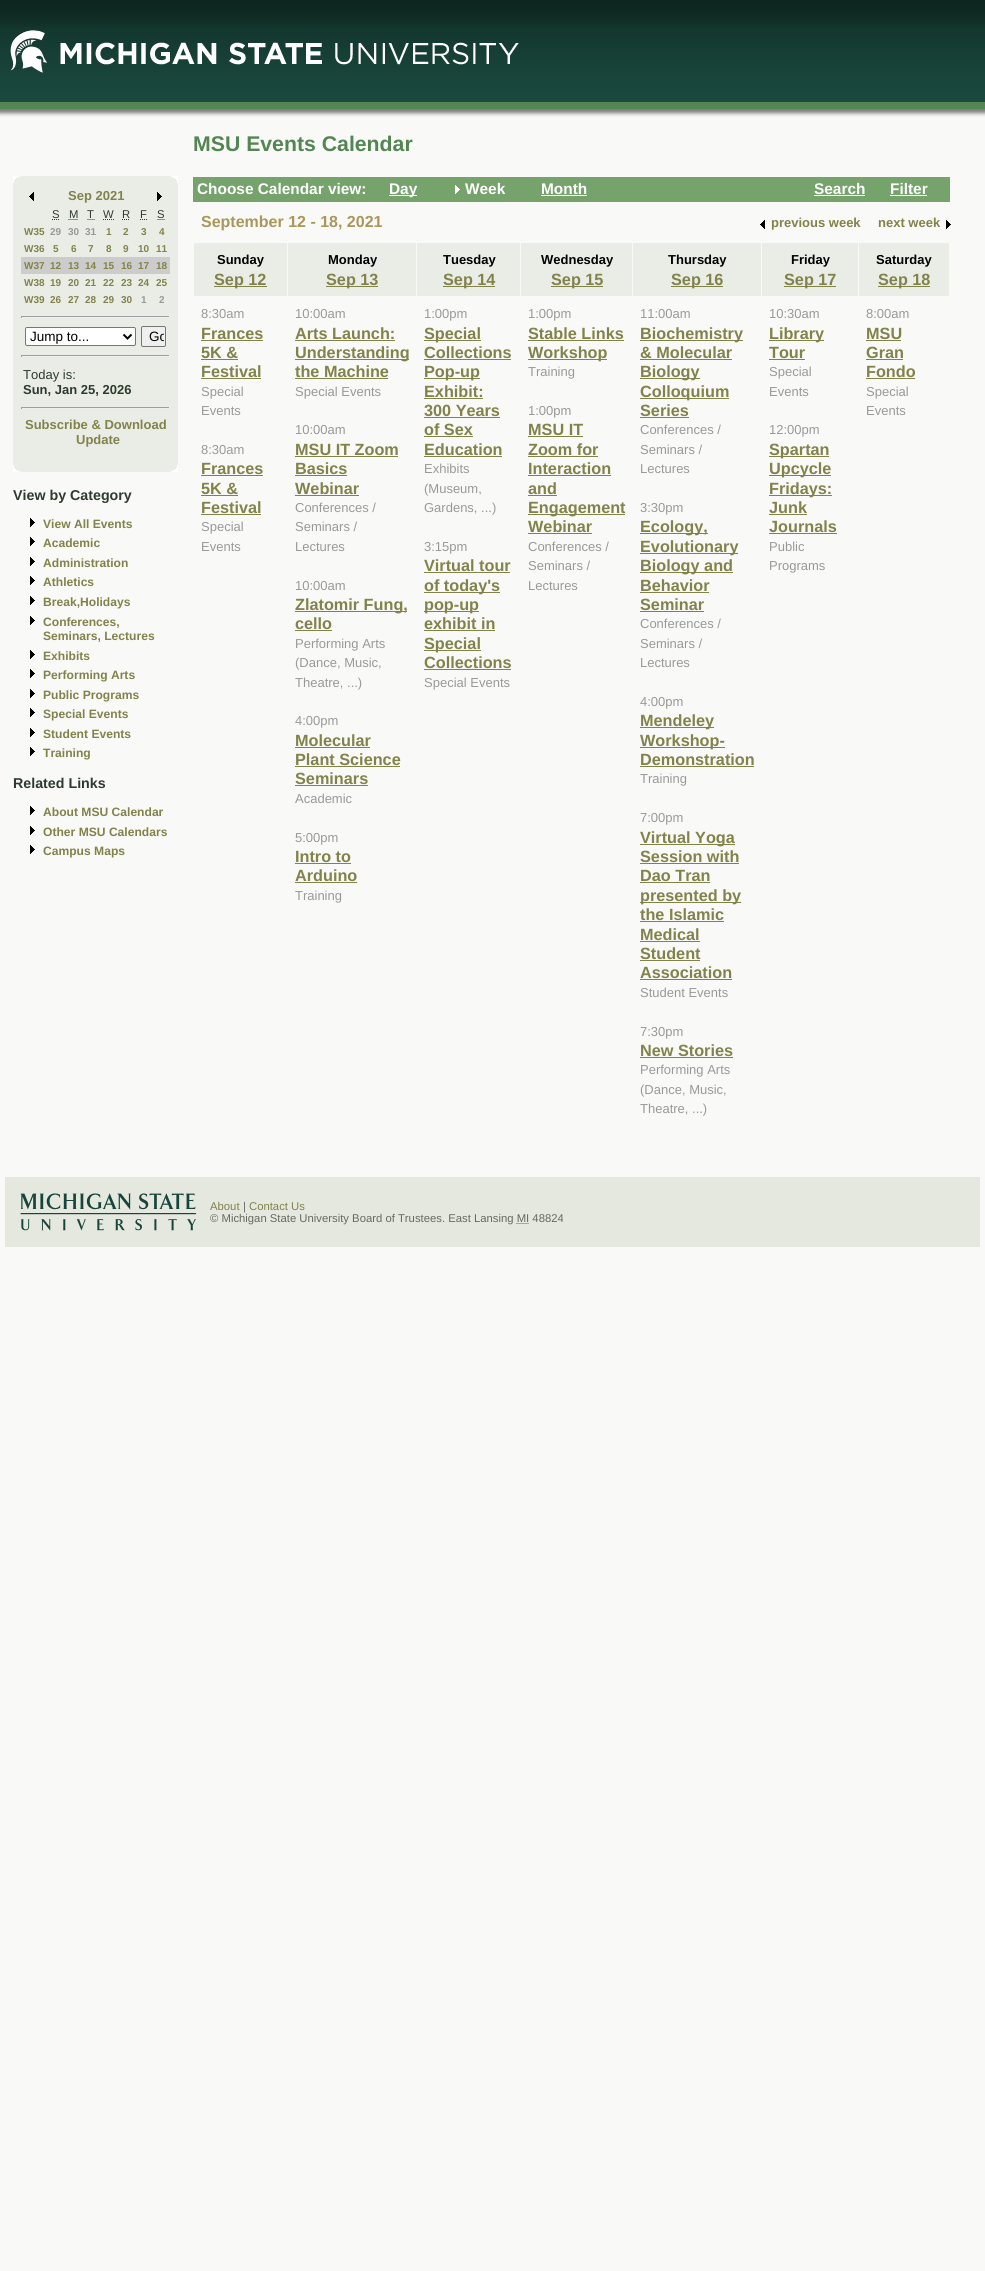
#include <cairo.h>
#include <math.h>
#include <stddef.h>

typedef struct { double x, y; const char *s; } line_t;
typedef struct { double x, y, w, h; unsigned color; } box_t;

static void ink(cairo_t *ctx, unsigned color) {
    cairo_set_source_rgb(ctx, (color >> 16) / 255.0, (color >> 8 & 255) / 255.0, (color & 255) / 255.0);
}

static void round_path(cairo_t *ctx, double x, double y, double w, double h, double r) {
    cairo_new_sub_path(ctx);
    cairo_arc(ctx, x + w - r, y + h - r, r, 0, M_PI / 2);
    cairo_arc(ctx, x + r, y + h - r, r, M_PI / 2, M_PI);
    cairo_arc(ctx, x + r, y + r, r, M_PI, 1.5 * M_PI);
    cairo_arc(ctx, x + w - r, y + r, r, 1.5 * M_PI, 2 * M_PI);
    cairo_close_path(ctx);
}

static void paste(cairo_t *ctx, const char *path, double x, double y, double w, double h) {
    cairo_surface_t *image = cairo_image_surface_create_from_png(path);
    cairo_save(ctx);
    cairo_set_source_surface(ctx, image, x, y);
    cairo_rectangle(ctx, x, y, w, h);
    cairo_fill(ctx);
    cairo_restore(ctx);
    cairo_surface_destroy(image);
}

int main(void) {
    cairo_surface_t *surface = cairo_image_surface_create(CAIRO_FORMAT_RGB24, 985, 2271);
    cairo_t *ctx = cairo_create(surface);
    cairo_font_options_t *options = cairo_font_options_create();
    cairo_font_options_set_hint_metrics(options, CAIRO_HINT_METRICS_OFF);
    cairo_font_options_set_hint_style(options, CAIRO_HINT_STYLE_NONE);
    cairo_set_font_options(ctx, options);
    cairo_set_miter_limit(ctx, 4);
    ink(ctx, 0xF9F9F7);
    cairo_paint(ctx);
    paste(ctx, "media/1.png", 0, 0, 985, 117);
    paste(ctx, "media/2.png", 10, 30, 509, 43);
    ink(ctx, 0xEAEDE6);
    cairo_rectangle(ctx, 13, 176, 8, 296);
    cairo_fill(ctx);
    paste(ctx, "media/3.png", 13, 176, 7, 7);
    cairo_rectangle(ctx, 21, 176, 149, 296);
    cairo_fill(ctx);
    cairo_rectangle(ctx, 170, 176, 8, 296);
    cairo_fill(ctx);
    paste(ctx, "media/4.png", 171, 176, 7, 7);
    paste(ctx, "media/5.png", 29, 192, 5, 9);
    cairo_select_font_face(ctx, "Liberation Sans", CAIRO_FONT_SLANT_NORMAL, CAIRO_FONT_WEIGHT_BOLD);
    cairo_set_font_size(ctx, 13);
    ink(ctx, 0x82824B);
    cairo_move_to(ctx, 68, 200);
    cairo_show_text(ctx, "Sep 2021");
    paste(ctx, "media/6.png", 157, 192, 5, 9);
    cairo_select_font_face(ctx, "Liberation Sans", CAIRO_FONT_SLANT_NORMAL, CAIRO_FONT_WEIGHT_NORMAL);
    cairo_set_font_size(ctx, 11.3);
    ink(ctx, 0x2D3C2D);
    cairo_move_to(ctx, 52, 218);
    cairo_show_text(ctx, "S");
    cairo_new_path(ctx);
    cairo_move_to(ctx, 52, 219.5);
    cairo_line_to(ctx, 59.5, 219.5);
    cairo_set_line_width(ctx, 1);
    cairo_set_dash(ctx, (double[]){1, 1}, 2, 0);
    cairo_stroke(ctx);
    cairo_move_to(ctx, 69, 218);
    cairo_show_text(ctx, "M");
    cairo_new_path(ctx);
    cairo_move_to(ctx, 68.5, 219.5);
    cairo_line_to(ctx, 78, 219.5);
    cairo_stroke(ctx);
    cairo_move_to(ctx, 87, 218);
    cairo_show_text(ctx, "T");
    cairo_new_path(ctx);
    cairo_move_to(ctx, 87.5, 219.5);
    cairo_line_to(ctx, 88.5, 219.5);
    cairo_move_to(ctx, 89.5, 219.5);
    cairo_line_to(ctx, 90.5, 219.5);
    cairo_move_to(ctx, 91.5, 219.5);
    cairo_line_to(ctx, 92.5, 219.5);
    cairo_move_to(ctx, 93.5, 219.5);
    cairo_line_to(ctx, 94.5, 219.5);
    cairo_set_dash(ctx, NULL, 0, 0);
    cairo_stroke(ctx);
    cairo_move_to(ctx, 103, 218);
    cairo_show_text(ctx, "W");
    cairo_new_path(ctx);
    cairo_move_to(ctx, 103, 219.5);
    cairo_line_to(ctx, 114, 219.5);
    cairo_set_dash(ctx, (double[]){1, 1}, 2, 0);
    cairo_stroke(ctx);
    cairo_move_to(ctx, 122, 218);
    cairo_show_text(ctx, "R");
    cairo_new_path(ctx);
    cairo_move_to(ctx, 122, 219.5);
    cairo_line_to(ctx, 130, 219.5);
    cairo_stroke(ctx);
    cairo_move_to(ctx, 140, 218);
    cairo_show_text(ctx, "F");
    cairo_new_path(ctx);
    cairo_move_to(ctx, 140, 219.5);
    cairo_line_to(ctx, 141, 219.5);
    cairo_move_to(ctx, 142, 219.5);
    cairo_line_to(ctx, 143, 219.5);
    cairo_move_to(ctx, 144, 219.5);
    cairo_line_to(ctx, 145, 219.5);
    cairo_move_to(ctx, 146, 219.5);
    cairo_line_to(ctx, 147, 219.5);
    cairo_set_dash(ctx, NULL, 0, 0);
    cairo_stroke(ctx);
    cairo_move_to(ctx, 157, 218);
    cairo_show_text(ctx, "S");
    cairo_new_path(ctx);
    cairo_move_to(ctx, 157.5, 219.5);
    cairo_line_to(ctx, 165, 219.5);
    cairo_set_dash(ctx, (double[]){1, 1}, 2, 0);
    cairo_stroke(ctx);
    cairo_select_font_face(ctx, "Liberation Sans", CAIRO_FONT_SLANT_NORMAL, CAIRO_FONT_WEIGHT_BOLD);
    cairo_set_font_size(ctx, 10);
    ink(ctx, 0x82824B);
    cairo_move_to(ctx, 24, 235);
    cairo_show_text(ctx, "W35");
    ink(ctx, 0x999999);
    {
        static const line_t items[] = {
            {50, 235, "29"},
            {68, 235, "30"},
            {85, 235, "31"},
        };
        for (size_t i = 0; i < sizeof items / sizeof *items; i++) {
            cairo_move_to(ctx, items[i].x, items[i].y);
            cairo_show_text(ctx, items[i].s);
        }
    }
    ink(ctx, 0x82824B);
    {
        static const line_t items[] = {
            {106, 235, "1"},
            {123, 235, "2"},
            {141, 235, "3"},
            {159, 235, "4"},
            {24, 252, "W36"},
            {53, 252, "5"},
            {71, 252, "6"},
            {88, 252, "7"},
            {106, 252, "8"},
            {123, 252, "9"},
            {138, 252, "10"},
            {156, 252, "11"},
        };
        for (size_t i = 0; i < sizeof items / sizeof *items; i++) {
            cairo_move_to(ctx, items[i].x, items[i].y);
            cairo_show_text(ctx, items[i].s);
        }
    }
    ink(ctx, 0xCCCCCC);
    cairo_rectangle(ctx, 21, 257, 149, 17);
    cairo_fill(ctx);
    ink(ctx, 0x82824B);
    {
        static const line_t items[] = {
            {24, 269, "W37"},
            {50, 269, "12"},
            {68, 269, "13"},
            {85, 269, "14"},
            {103, 269, "15"},
            {121, 269, "16"},
            {138, 269, "17"},
            {156, 269, "18"},
            {24, 286, "W38"},
            {50, 286, "19"},
            {68, 286, "20"},
            {85, 286, "21"},
            {103, 286, "22"},
            {121, 286, "23"},
            {138, 286, "24"},
            {156, 286, "25"},
            {24, 303, "W39"},
            {50, 303, "26"},
            {68, 303, "27"},
            {85, 303, "28"},
            {103, 303, "29"},
            {121, 303, "30"},
        };
        for (size_t i = 0; i < sizeof items / sizeof *items; i++) {
            cairo_move_to(ctx, items[i].x, items[i].y);
            cairo_show_text(ctx, items[i].s);
        }
    }
    ink(ctx, 0x999999);
    cairo_move_to(ctx, 141, 303);
    cairo_show_text(ctx, "1");
    cairo_move_to(ctx, 159, 303);
    cairo_show_text(ctx, "2");
    {
        static const box_t items[] = {
            {21, 316, 149, 1, 0x9F9F9F},
            {169, 316, 1, 2, 0xEEEEEE},
            {21, 317, 149, 1, 0xEEEEEE},
            {21, 316, 1, 2, 0x9F9F9F},
        };
        for (size_t i = 0; i < sizeof items / sizeof *items; i++) {
            ink(ctx, items[i].color);
            cairo_rectangle(ctx, items[i].x, items[i].y, items[i].w, items[i].h);
            cairo_fill(ctx);
        }
    }
    ink(ctx, 0xFFFFFF);
    round_path(ctx, 25.5, 327.5, 110, 18, 1.5);
    cairo_fill_preserve(ctx);
    ink(ctx, 0x767676);
    cairo_set_dash(ctx, NULL, 0, 0);
    cairo_stroke(ctx);
    cairo_new_path(ctx);
    cairo_move_to(ctx, 123.5, 334.5);
    cairo_line_to(ctx, 127.5, 338.5);
    cairo_line_to(ctx, 131.5, 334.5);
    ink(ctx, 0x000000);
    cairo_set_line_width(ctx, 2);
    cairo_stroke(ctx);
    cairo_select_font_face(ctx, "Liberation Sans", CAIRO_FONT_SLANT_NORMAL, CAIRO_FONT_WEIGHT_NORMAL);
    cairo_set_font_size(ctx, 13.5);
    cairo_move_to(ctx, 30, 341);
    cairo_show_text(ctx, "Jump to...");
    ink(ctx, 0xEFEFEF);
    round_path(ctx, 141.5, 326.5, 24, 20, 1.5);
    cairo_fill_preserve(ctx);
    ink(ctx, 0x767676);
    cairo_set_line_width(ctx, 1);
    cairo_stroke(ctx);
    cairo_save(ctx);
    cairo_rectangle(ctx, 143, 328, 21, 17);
    cairo_clip(ctx);
    ink(ctx, 0x000000);
    cairo_move_to(ctx, 149, 341);
    cairo_show_text(ctx, "Go");
    cairo_restore(ctx);
    {
        static const box_t items[] = {
            {21, 355, 149, 1, 0x9F9F9F},
            {169, 355, 1, 2, 0xEEEEEE},
            {21, 356, 149, 1, 0xEEEEEE},
            {21, 355, 1, 2, 0x9F9F9F},
        };
        for (size_t i = 0; i < sizeof items / sizeof *items; i++) {
            ink(ctx, items[i].color);
            cairo_rectangle(ctx, items[i].x, items[i].y, items[i].w, items[i].h);
            cairo_fill(ctx);
        }
    }
    cairo_set_font_size(ctx, 13);
    ink(ctx, 0x2D3C2D);
    cairo_move_to(ctx, 23, 379);
    cairo_show_text(ctx, "Today is:");
    cairo_select_font_face(ctx, "Liberation Sans", CAIRO_FONT_SLANT_NORMAL, CAIRO_FONT_WEIGHT_BOLD);
    cairo_move_to(ctx, 23, 394);
    cairo_show_text(ctx, "Sun, Jan 25, 2026");
    {
        static const box_t items[] = {
            {21, 407, 149, 1, 0x9F9F9F},
            {169, 407, 1, 2, 0xEEEEEE},
            {21, 408, 149, 1, 0xEEEEEE},
            {21, 407, 1, 2, 0x9F9F9F},
        };
        for (size_t i = 0; i < sizeof items / sizeof *items; i++) {
            ink(ctx, items[i].color);
            cairo_rectangle(ctx, items[i].x, items[i].y, items[i].w, items[i].h);
            cairo_fill(ctx);
        }
    }
    ink(ctx, 0x82824B);
    cairo_move_to(ctx, 25, 429);
    cairo_show_text(ctx, "Subscribe & Download");
    cairo_move_to(ctx, 76, 444);
    cairo_show_text(ctx, "Update");
    paste(ctx, "media/7.png", 13, 465, 7, 7);
    paste(ctx, "media/8.png", 171, 465, 7, 7);
    cairo_set_font_size(ctx, 14.25);
    ink(ctx, 0x2D3C2D);
    cairo_move_to(ctx, 13, 500);
    cairo_show_text(ctx, "View by Category");
    paste(ctx, "media/9.png", 30, 518, 5, 9);
    cairo_set_font_size(ctx, 12.1);
    ink(ctx, 0x82824B);
    cairo_move_to(ctx, 43, 528);
    cairo_show_text(ctx, "View All Events");
    paste(ctx, "media/9.png", 30, 537, 5, 9);
    cairo_move_to(ctx, 43, 547);
    cairo_show_text(ctx, "Academic");
    paste(ctx, "media/9.png", 30, 557, 5, 9);
    cairo_move_to(ctx, 43, 567);
    cairo_show_text(ctx, "Administration");
    paste(ctx, "media/9.png", 30, 576, 5, 9);
    cairo_move_to(ctx, 43, 586);
    cairo_show_text(ctx, "Athletics");
    paste(ctx, "media/9.png", 30, 596, 5, 9);
    cairo_move_to(ctx, 43, 606);
    cairo_show_text(ctx, "Break,Holidays");
    paste(ctx, "media/9.png", 30, 616, 5, 9);
    cairo_move_to(ctx, 43, 626);
    cairo_show_text(ctx, "Conferences,");
    cairo_move_to(ctx, 43, 640);
    cairo_show_text(ctx, "Seminars, Lectures");
    paste(ctx, "media/9.png", 30, 650, 5, 9);
    cairo_move_to(ctx, 43, 660);
    cairo_show_text(ctx, "Exhibits");
    paste(ctx, "media/9.png", 30, 669, 5, 9);
    cairo_move_to(ctx, 43, 679);
    cairo_show_text(ctx, "Performing Arts");
    paste(ctx, "media/9.png", 30, 689, 5, 9);
    cairo_move_to(ctx, 43, 699);
    cairo_show_text(ctx, "Public Programs");
    paste(ctx, "media/9.png", 30, 708, 5, 9);
    cairo_move_to(ctx, 43, 718);
    cairo_show_text(ctx, "Special Events");
    paste(ctx, "media/9.png", 30, 728, 5, 9);
    cairo_move_to(ctx, 43, 738);
    cairo_show_text(ctx, "Student Events");
    paste(ctx, "media/9.png", 30, 747, 5, 9);
    cairo_move_to(ctx, 43, 757);
    cairo_show_text(ctx, "Training");
    cairo_set_font_size(ctx, 14.25);
    ink(ctx, 0x2D3C2D);
    cairo_move_to(ctx, 13, 788);
    cairo_show_text(ctx, "Related Links");
    paste(ctx, "media/9.png", 30, 806, 5, 9);
    cairo_set_font_size(ctx, 12.1);
    ink(ctx, 0x82824B);
    cairo_move_to(ctx, 43, 816);
    cairo_show_text(ctx, "About MSU Calendar");
    paste(ctx, "media/9.png", 30, 826, 5, 9);
    cairo_move_to(ctx, 43, 836);
    cairo_show_text(ctx, "Other MSU Calendars");
    paste(ctx, "media/9.png", 30, 845, 5, 9);
    cairo_move_to(ctx, 43, 855);
    cairo_show_text(ctx, "Campus Maps");
    cairo_set_font_size(ctx, 21.25);
    ink(ctx, 0x548654);
    cairo_move_to(ctx, 193, 151);
    cairo_show_text(ctx, "MSU Events Calendar");
    ink(ctx, 0x75A36B);
    cairo_rectangle(ctx, 193, 177, 757, 25);
    cairo_fill(ctx);
    cairo_set_font_size(ctx, 15.4);
    ink(ctx, 0xFFFFFF);
    cairo_move_to(ctx, 197, 194);
    cairo_show_text(ctx, "Choose Calendar view:");
    cairo_rectangle(ctx, 389, 195, 28, 1);
    cairo_fill(ctx);
    cairo_move_to(ctx, 389, 194);
    cairo_show_text(ctx, "Day");
    paste(ctx, "media/10.png", 455, 185, 5, 9);
    cairo_move_to(ctx, 465, 194);
    cairo_show_text(ctx, "Week");
    cairo_move_to(ctx, 541, 194);
    cairo_show_text(ctx, "Month");
    cairo_rectangle(ctx, 541, 195, 46, 1);
    cairo_fill(ctx);
    cairo_move_to(ctx, 814, 194);
    cairo_show_text(ctx, "Search");
    cairo_rectangle(ctx, 814, 195, 51, 1);
    cairo_fill(ctx);
    cairo_move_to(ctx, 890, 194);
    cairo_show_text(ctx, "Filter");
    cairo_rectangle(ctx, 890, 195, 37, 1);
    cairo_fill(ctx);
    cairo_set_font_size(ctx, 16);
    ink(ctx, 0xAA975B);
    cairo_move_to(ctx, 201, 227);
    cairo_show_text(ctx, "September 12 - 18, 2021");
    paste(ctx, "media/11.png", 760, 220, 5, 9);
    cairo_set_font_size(ctx, 13);
    ink(ctx, 0x82824B);
    cairo_move_to(ctx, 771, 227);
    cairo_show_text(ctx, "previous week");
    cairo_move_to(ctx, 878, 227);
    cairo_show_text(ctx, "next week");
    paste(ctx, "media/9.png", 946, 220, 5, 9);
    ink(ctx, 0xEAEDE6);
    cairo_rectangle(ctx, 194, 243, 93, 53);
    cairo_fill(ctx);
    ink(ctx, 0x000000);
    cairo_move_to(ctx, 217, 264);
    cairo_show_text(ctx, "Sunday");
    ink(ctx, 0x82824B);
    cairo_rectangle(ctx, 214, 286, 53, 1);
    cairo_fill(ctx);
    cairo_set_font_size(ctx, 16.25);
    cairo_move_to(ctx, 214, 285);
    cairo_show_text(ctx, "Sep 12");
    ink(ctx, 0xEAEDE6);
    cairo_rectangle(ctx, 288, 243, 128, 53);
    cairo_fill(ctx);
    cairo_set_font_size(ctx, 13);
    ink(ctx, 0x000000);
    cairo_move_to(ctx, 328, 264);
    cairo_show_text(ctx, "Monday");
    ink(ctx, 0x82824B);
    cairo_rectangle(ctx, 326, 286, 52, 1);
    cairo_fill(ctx);
    cairo_set_font_size(ctx, 16.25);
    cairo_move_to(ctx, 326, 285);
    cairo_show_text(ctx, "Sep 13");
    ink(ctx, 0xEAEDE6);
    cairo_rectangle(ctx, 417, 243, 103, 53);
    cairo_fill(ctx);
    cairo_set_font_size(ctx, 13);
    ink(ctx, 0x000000);
    cairo_move_to(ctx, 443, 264);
    cairo_show_text(ctx, "Tuesday");
    ink(ctx, 0x82824B);
    cairo_rectangle(ctx, 443, 286, 52, 1);
    cairo_fill(ctx);
    cairo_set_font_size(ctx, 16.25);
    cairo_move_to(ctx, 443, 285);
    cairo_show_text(ctx, "Sep 14");
    ink(ctx, 0xEAEDE6);
    cairo_rectangle(ctx, 521, 243, 111, 53);
    cairo_fill(ctx);
    cairo_set_font_size(ctx, 13);
    ink(ctx, 0x000000);
    cairo_move_to(ctx, 541, 264);
    cairo_show_text(ctx, "Wednesday");
    ink(ctx, 0x82824B);
    cairo_rectangle(ctx, 551, 286, 52, 1);
    cairo_fill(ctx);
    cairo_set_font_size(ctx, 16.25);
    cairo_move_to(ctx, 551, 285);
    cairo_show_text(ctx, "Sep 15");
    ink(ctx, 0xEAEDE6);
    cairo_rectangle(ctx, 633, 243, 128, 53);
    cairo_fill(ctx);
    cairo_set_font_size(ctx, 13);
    ink(ctx, 0x000000);
    cairo_move_to(ctx, 668, 264);
    cairo_show_text(ctx, "Thursday");
    ink(ctx, 0x82824B);
    cairo_rectangle(ctx, 671, 286, 52, 1);
    cairo_fill(ctx);
    cairo_set_font_size(ctx, 16.25);
    cairo_move_to(ctx, 671, 285);
    cairo_show_text(ctx, "Sep 16");
    ink(ctx, 0xEAEDE6);
    cairo_rectangle(ctx, 762, 243, 96, 53);
    cairo_fill(ctx);
    cairo_set_font_size(ctx, 13);
    ink(ctx, 0x000000);
    cairo_move_to(ctx, 791, 264);
    cairo_show_text(ctx, "Friday");
    ink(ctx, 0x82824B);
    cairo_rectangle(ctx, 784, 286, 52, 1);
    cairo_fill(ctx);
    cairo_set_font_size(ctx, 16.25);
    cairo_move_to(ctx, 784, 285);
    cairo_show_text(ctx, "Sep 17");
    ink(ctx, 0xEAEDE6);
    cairo_rectangle(ctx, 859, 243, 90, 53);
    cairo_fill(ctx);
    cairo_set_font_size(ctx, 13);
    ink(ctx, 0x000000);
    cairo_move_to(ctx, 876, 264);
    cairo_show_text(ctx, "Saturday");
    ink(ctx, 0x82824B);
    cairo_rectangle(ctx, 878, 286, 52, 1);
    cairo_fill(ctx);
    cairo_set_font_size(ctx, 16.25);
    cairo_move_to(ctx, 878, 285);
    cairo_show_text(ctx, "Sep 18");
    cairo_select_font_face(ctx, "Liberation Sans", CAIRO_FONT_SLANT_NORMAL, CAIRO_FONT_WEIGHT_NORMAL);
    cairo_set_font_size(ctx, 13);
    ink(ctx, 0x999999);
    cairo_move_to(ctx, 201, 318);
    cairo_show_text(ctx, "8:30am");
    cairo_select_font_face(ctx, "Liberation Sans", CAIRO_FONT_SLANT_NORMAL, CAIRO_FONT_WEIGHT_BOLD);
    cairo_set_font_size(ctx, 16.25);
    ink(ctx, 0x82824B);
    cairo_move_to(ctx, 201, 339);
    cairo_show_text(ctx, "Frances");
    cairo_rectangle(ctx, 201, 340, 62, 1);
    cairo_fill(ctx);
    cairo_move_to(ctx, 201, 358);
    cairo_show_text(ctx, "5K &");
    cairo_rectangle(ctx, 201, 359, 37, 1);
    cairo_fill(ctx);
    cairo_move_to(ctx, 201, 377);
    cairo_show_text(ctx, "Festival");
    cairo_rectangle(ctx, 201, 378, 60, 1);
    cairo_fill(ctx);
    cairo_select_font_face(ctx, "Liberation Sans", CAIRO_FONT_SLANT_NORMAL, CAIRO_FONT_WEIGHT_NORMAL);
    cairo_set_font_size(ctx, 13);
    ink(ctx, 0x999999);
    {
        static const line_t items[] = {
            {201, 396, "Special"},
            {201, 415, "Events"},
            {201, 454, "8:30am"},
        };
        for (size_t i = 0; i < sizeof items / sizeof *items; i++) {
            cairo_move_to(ctx, items[i].x, items[i].y);
            cairo_show_text(ctx, items[i].s);
        }
    }
    cairo_select_font_face(ctx, "Liberation Sans", CAIRO_FONT_SLANT_NORMAL, CAIRO_FONT_WEIGHT_BOLD);
    cairo_set_font_size(ctx, 16.25);
    ink(ctx, 0x82824B);
    cairo_move_to(ctx, 201, 474);
    cairo_show_text(ctx, "Frances");
    cairo_rectangle(ctx, 201, 475, 62, 1);
    cairo_fill(ctx);
    cairo_move_to(ctx, 201, 494);
    cairo_show_text(ctx, "5K &");
    cairo_rectangle(ctx, 201, 495, 37, 1);
    cairo_fill(ctx);
    cairo_move_to(ctx, 201, 513);
    cairo_show_text(ctx, "Festival");
    cairo_rectangle(ctx, 201, 514, 60, 1);
    cairo_fill(ctx);
    cairo_select_font_face(ctx, "Liberation Sans", CAIRO_FONT_SLANT_NORMAL, CAIRO_FONT_WEIGHT_NORMAL);
    cairo_set_font_size(ctx, 13);
    ink(ctx, 0x999999);
    {
        static const line_t items[] = {
            {201, 531, "Special"},
            {201, 551, "Events"},
            {295, 318, "10:00am"},
        };
        for (size_t i = 0; i < sizeof items / sizeof *items; i++) {
            cairo_move_to(ctx, items[i].x, items[i].y);
            cairo_show_text(ctx, items[i].s);
        }
    }
    cairo_select_font_face(ctx, "Liberation Sans", CAIRO_FONT_SLANT_NORMAL, CAIRO_FONT_WEIGHT_BOLD);
    cairo_set_font_size(ctx, 16.25);
    ink(ctx, 0x82824B);
    cairo_move_to(ctx, 295, 339);
    cairo_show_text(ctx, "Arts Launch:");
    cairo_rectangle(ctx, 295, 340, 100, 1);
    cairo_fill(ctx);
    cairo_rectangle(ctx, 295, 359, 114, 1);
    cairo_fill(ctx);
    cairo_move_to(ctx, 295, 358);
    cairo_show_text(ctx, "Understanding");
    cairo_move_to(ctx, 295, 377);
    cairo_show_text(ctx, "the Machine");
    cairo_rectangle(ctx, 295, 378, 93, 1);
    cairo_fill(ctx);
    cairo_select_font_face(ctx, "Liberation Sans", CAIRO_FONT_SLANT_NORMAL, CAIRO_FONT_WEIGHT_NORMAL);
    cairo_set_font_size(ctx, 13);
    ink(ctx, 0x999999);
    cairo_move_to(ctx, 295, 396);
    cairo_show_text(ctx, "Special Events");
    cairo_move_to(ctx, 295, 434);
    cairo_show_text(ctx, "10:00am");
    cairo_select_font_face(ctx, "Liberation Sans", CAIRO_FONT_SLANT_NORMAL, CAIRO_FONT_WEIGHT_BOLD);
    cairo_set_font_size(ctx, 16.25);
    ink(ctx, 0x82824B);
    cairo_move_to(ctx, 295, 455);
    cairo_show_text(ctx, "MSU IT Zoom");
    cairo_rectangle(ctx, 295, 456, 103, 1);
    cairo_fill(ctx);
    cairo_move_to(ctx, 295, 474);
    cairo_show_text(ctx, "Basics");
    cairo_rectangle(ctx, 295, 475, 52, 1);
    cairo_fill(ctx);
    cairo_move_to(ctx, 295, 494);
    cairo_show_text(ctx, "Webinar");
    cairo_rectangle(ctx, 295, 495, 64, 1);
    cairo_fill(ctx);
    cairo_select_font_face(ctx, "Liberation Sans", CAIRO_FONT_SLANT_NORMAL, CAIRO_FONT_WEIGHT_NORMAL);
    cairo_set_font_size(ctx, 13);
    ink(ctx, 0x999999);
    {
        static const line_t items[] = {
            {295, 512, "Conferences /"},
            {295, 531, "Seminars /"},
            {295, 551, "Lectures"},
            {295, 590, "10:00am"},
        };
        for (size_t i = 0; i < sizeof items / sizeof *items; i++) {
            cairo_move_to(ctx, items[i].x, items[i].y);
            cairo_show_text(ctx, items[i].s);
        }
    }
    ink(ctx, 0x82824B);
    cairo_rectangle(ctx, 295, 611, 112, 1);
    cairo_fill(ctx);
    cairo_select_font_face(ctx, "Liberation Sans", CAIRO_FONT_SLANT_NORMAL, CAIRO_FONT_WEIGHT_BOLD);
    cairo_set_font_size(ctx, 16.25);
    cairo_move_to(ctx, 295, 610);
    cairo_show_text(ctx, "Zlatomir Fung,");
    cairo_move_to(ctx, 295, 629);
    cairo_show_text(ctx, "cello");
    cairo_rectangle(ctx, 295, 630, 37, 1);
    cairo_fill(ctx);
    cairo_select_font_face(ctx, "Liberation Sans", CAIRO_FONT_SLANT_NORMAL, CAIRO_FONT_WEIGHT_NORMAL);
    cairo_set_font_size(ctx, 13);
    ink(ctx, 0x999999);
    {
        static const line_t items[] = {
            {295, 648, "Performing Arts"},
            {295, 667, "(Dance, Music,"},
            {295, 687, "Theatre, ...)"},
            {295, 725, "4:00pm"},
        };
        for (size_t i = 0; i < sizeof items / sizeof *items; i++) {
            cairo_move_to(ctx, items[i].x, items[i].y);
            cairo_show_text(ctx, items[i].s);
        }
    }
    cairo_select_font_face(ctx, "Liberation Sans", CAIRO_FONT_SLANT_NORMAL, CAIRO_FONT_WEIGHT_BOLD);
    cairo_set_font_size(ctx, 16.25);
    ink(ctx, 0x82824B);
    cairo_move_to(ctx, 295, 746);
    cairo_show_text(ctx, "Molecular");
    cairo_rectangle(ctx, 295, 747, 75, 1);
    cairo_fill(ctx);
    cairo_move_to(ctx, 295, 765);
    cairo_show_text(ctx, "Plant Science");
    cairo_rectangle(ctx, 295, 766, 105, 1);
    cairo_fill(ctx);
    cairo_move_to(ctx, 295, 784);
    cairo_show_text(ctx, "Seminars");
    cairo_rectangle(ctx, 295, 785, 73, 1);
    cairo_fill(ctx);
    cairo_select_font_face(ctx, "Liberation Sans", CAIRO_FONT_SLANT_NORMAL, CAIRO_FONT_WEIGHT_NORMAL);
    cairo_set_font_size(ctx, 13);
    ink(ctx, 0x999999);
    cairo_move_to(ctx, 295, 803);
    cairo_show_text(ctx, "Academic");
    cairo_move_to(ctx, 295, 842);
    cairo_show_text(ctx, "5:00pm");
    cairo_select_font_face(ctx, "Liberation Sans", CAIRO_FONT_SLANT_NORMAL, CAIRO_FONT_WEIGHT_BOLD);
    cairo_set_font_size(ctx, 16.25);
    ink(ctx, 0x82824B);
    cairo_move_to(ctx, 295, 862);
    cairo_show_text(ctx, "Intro to");
    cairo_rectangle(ctx, 295, 863, 56, 1);
    cairo_fill(ctx);
    cairo_move_to(ctx, 295, 881);
    cairo_show_text(ctx, "Arduino");
    cairo_rectangle(ctx, 295, 882, 62, 1);
    cairo_fill(ctx);
    cairo_select_font_face(ctx, "Liberation Sans", CAIRO_FONT_SLANT_NORMAL, CAIRO_FONT_WEIGHT_NORMAL);
    cairo_set_font_size(ctx, 13);
    ink(ctx, 0x999999);
    cairo_move_to(ctx, 295, 900);
    cairo_show_text(ctx, "Training");
    cairo_move_to(ctx, 424, 318);
    cairo_show_text(ctx, "1:00pm");
    ink(ctx, 0x82824B);
    cairo_rectangle(ctx, 424, 340, 57, 1);
    cairo_fill(ctx);
    cairo_select_font_face(ctx, "Liberation Sans", CAIRO_FONT_SLANT_NORMAL, CAIRO_FONT_WEIGHT_BOLD);
    cairo_set_font_size(ctx, 16.25);
    cairo_move_to(ctx, 424, 339);
    cairo_show_text(ctx, "Special");
    cairo_move_to(ctx, 424, 358);
    cairo_show_text(ctx, "Collections");
    cairo_rectangle(ctx, 424, 359, 87, 1);
    cairo_fill(ctx);
    cairo_rectangle(ctx, 424, 378, 56, 1);
    cairo_fill(ctx);
    cairo_move_to(ctx, 424, 377);
    cairo_show_text(ctx, "Pop-up");
    cairo_move_to(ctx, 424, 397);
    cairo_show_text(ctx, "Exhibit:");
    cairo_rectangle(ctx, 424, 398, 59, 1);
    cairo_fill(ctx);
    cairo_move_to(ctx, 424, 416);
    cairo_show_text(ctx, "300 Years");
    cairo_rectangle(ctx, 424, 417, 76, 1);
    cairo_fill(ctx);
    cairo_move_to(ctx, 424, 435);
    cairo_show_text(ctx, "of Sex");
    cairo_rectangle(ctx, 424, 436, 49, 1);
    cairo_fill(ctx);
    cairo_move_to(ctx, 424, 455);
    cairo_show_text(ctx, "Education");
    cairo_rectangle(ctx, 424, 456, 78, 1);
    cairo_fill(ctx);
    cairo_select_font_face(ctx, "Liberation Sans", CAIRO_FONT_SLANT_NORMAL, CAIRO_FONT_WEIGHT_NORMAL);
    cairo_set_font_size(ctx, 13);
    ink(ctx, 0x999999);
    {
        static const line_t items[] = {
            {424, 473, "Exhibits"},
            {424, 493, "(Museum,"},
            {424, 512, "Gardens, ...)"},
            {424, 551, "3:15pm"},
        };
        for (size_t i = 0; i < sizeof items / sizeof *items; i++) {
            cairo_move_to(ctx, items[i].x, items[i].y);
            cairo_show_text(ctx, items[i].s);
        }
    }
    cairo_select_font_face(ctx, "Liberation Sans", CAIRO_FONT_SLANT_NORMAL, CAIRO_FONT_WEIGHT_BOLD);
    cairo_set_font_size(ctx, 16.25);
    ink(ctx, 0x82824B);
    cairo_move_to(ctx, 424, 571);
    cairo_show_text(ctx, "Virtual tour");
    cairo_rectangle(ctx, 424, 572, 86, 1);
    cairo_fill(ctx);
    cairo_rectangle(ctx, 424, 592, 76, 1);
    cairo_fill(ctx);
    cairo_move_to(ctx, 424, 591);
    cairo_show_text(ctx, "of today's");
    cairo_rectangle(ctx, 424, 611, 55, 1);
    cairo_fill(ctx);
    cairo_move_to(ctx, 424, 610);
    cairo_show_text(ctx, "pop-up");
    cairo_move_to(ctx, 424, 629);
    cairo_show_text(ctx, "exhibit in");
    cairo_rectangle(ctx, 424, 630, 71, 1);
    cairo_fill(ctx);
    cairo_rectangle(ctx, 424, 650, 57, 1);
    cairo_fill(ctx);
    cairo_move_to(ctx, 424, 649);
    cairo_show_text(ctx, "Special");
    cairo_move_to(ctx, 424, 668);
    cairo_show_text(ctx, "Collections");
    cairo_rectangle(ctx, 424, 669, 87, 1);
    cairo_fill(ctx);
    cairo_select_font_face(ctx, "Liberation Sans", CAIRO_FONT_SLANT_NORMAL, CAIRO_FONT_WEIGHT_NORMAL);
    cairo_set_font_size(ctx, 13);
    ink(ctx, 0x999999);
    cairo_move_to(ctx, 424, 687);
    cairo_show_text(ctx, "Special Events");
    cairo_move_to(ctx, 528, 318);
    cairo_show_text(ctx, "1:00pm");
    cairo_select_font_face(ctx, "Liberation Sans", CAIRO_FONT_SLANT_NORMAL, CAIRO_FONT_WEIGHT_BOLD);
    cairo_set_font_size(ctx, 16.25);
    ink(ctx, 0x82824B);
    cairo_move_to(ctx, 528, 339);
    cairo_show_text(ctx, "Stable Links");
    cairo_rectangle(ctx, 528, 340, 96, 1);
    cairo_fill(ctx);
    cairo_rectangle(ctx, 528, 359, 79, 1);
    cairo_fill(ctx);
    cairo_move_to(ctx, 528, 358);
    cairo_show_text(ctx, "Workshop");
    cairo_select_font_face(ctx, "Liberation Sans", CAIRO_FONT_SLANT_NORMAL, CAIRO_FONT_WEIGHT_NORMAL);
    cairo_set_font_size(ctx, 13);
    ink(ctx, 0x999999);
    cairo_move_to(ctx, 528, 376);
    cairo_show_text(ctx, "Training");
    cairo_move_to(ctx, 528, 415);
    cairo_show_text(ctx, "1:00pm");
    cairo_select_font_face(ctx, "Liberation Sans", CAIRO_FONT_SLANT_NORMAL, CAIRO_FONT_WEIGHT_BOLD);
    cairo_set_font_size(ctx, 16.25);
    ink(ctx, 0x82824B);
    cairo_move_to(ctx, 528, 435);
    cairo_show_text(ctx, "MSU IT");
    cairo_rectangle(ctx, 528, 436, 55, 1);
    cairo_fill(ctx);
    cairo_move_to(ctx, 528, 455);
    cairo_show_text(ctx, "Zoom for");
    cairo_rectangle(ctx, 528, 456, 70, 1);
    cairo_fill(ctx);
    cairo_move_to(ctx, 528, 474);
    cairo_show_text(ctx, "Interaction");
    cairo_rectangle(ctx, 528, 475, 83, 1);
    cairo_fill(ctx);
    cairo_move_to(ctx, 528, 494);
    cairo_show_text(ctx, "and");
    cairo_rectangle(ctx, 528, 495, 29, 1);
    cairo_fill(ctx);
    cairo_rectangle(ctx, 528, 514, 97, 1);
    cairo_fill(ctx);
    cairo_move_to(ctx, 528, 513);
    cairo_show_text(ctx, "Engagement");
    cairo_move_to(ctx, 528, 532);
    cairo_show_text(ctx, "Webinar");
    cairo_rectangle(ctx, 528, 533, 64, 1);
    cairo_fill(ctx);
    cairo_select_font_face(ctx, "Liberation Sans", CAIRO_FONT_SLANT_NORMAL, CAIRO_FONT_WEIGHT_NORMAL);
    cairo_set_font_size(ctx, 13);
    ink(ctx, 0x999999);
    {
        static const line_t items[] = {
            {528, 551, "Conferences /"},
            {528, 570, "Seminars /"},
            {528, 590, "Lectures"},
            {640, 318, "11:00am"},
        };
        for (size_t i = 0; i < sizeof items / sizeof *items; i++) {
            cairo_move_to(ctx, items[i].x, items[i].y);
            cairo_show_text(ctx, items[i].s);
        }
    }
    ink(ctx, 0x82824B);
    cairo_rectangle(ctx, 640, 340, 103, 1);
    cairo_fill(ctx);
    cairo_select_font_face(ctx, "Liberation Sans", CAIRO_FONT_SLANT_NORMAL, CAIRO_FONT_WEIGHT_BOLD);
    cairo_set_font_size(ctx, 16.25);
    cairo_move_to(ctx, 640, 339);
    cairo_show_text(ctx, "Biochemistry");
    cairo_move_to(ctx, 640, 358);
    cairo_show_text(ctx, "& Molecular");
    cairo_rectangle(ctx, 640, 359, 92, 1);
    cairo_fill(ctx);
    cairo_rectangle(ctx, 640, 378, 60, 1);
    cairo_fill(ctx);
    cairo_move_to(ctx, 640, 377);
    cairo_show_text(ctx, "Biology");
    cairo_rectangle(ctx, 640, 398, 89, 1);
    cairo_fill(ctx);
    cairo_move_to(ctx, 640, 397);
    cairo_show_text(ctx, "Colloquium");
    cairo_move_to(ctx, 640, 416);
    cairo_show_text(ctx, "Series");
    cairo_rectangle(ctx, 640, 417, 49, 1);
    cairo_fill(ctx);
    cairo_select_font_face(ctx, "Liberation Sans", CAIRO_FONT_SLANT_NORMAL, CAIRO_FONT_WEIGHT_NORMAL);
    cairo_set_font_size(ctx, 13);
    ink(ctx, 0x999999);
    {
        static const line_t items[] = {
            {640, 434, "Conferences /"},
            {640, 454, "Seminars /"},
            {640, 473, "Lectures"},
            {640, 512, "3:30pm"},
        };
        for (size_t i = 0; i < sizeof items / sizeof *items; i++) {
            cairo_move_to(ctx, items[i].x, items[i].y);
            cairo_show_text(ctx, items[i].s);
        }
    }
    ink(ctx, 0x82824B);
    cairo_rectangle(ctx, 640, 533, 68, 1);
    cairo_fill(ctx);
    cairo_select_font_face(ctx, "Liberation Sans", CAIRO_FONT_SLANT_NORMAL, CAIRO_FONT_WEIGHT_BOLD);
    cairo_set_font_size(ctx, 16.25);
    cairo_move_to(ctx, 640, 532);
    cairo_show_text(ctx, "Ecology,");
    cairo_rectangle(ctx, 640, 553, 98, 1);
    cairo_fill(ctx);
    cairo_move_to(ctx, 640, 552);
    cairo_show_text(ctx, "Evolutionary");
    cairo_rectangle(ctx, 640, 572, 93, 1);
    cairo_fill(ctx);
    cairo_move_to(ctx, 640, 571);
    cairo_show_text(ctx, "Biology and");
    cairo_move_to(ctx, 640, 591);
    cairo_show_text(ctx, "Behavior");
    cairo_rectangle(ctx, 640, 592, 69, 1);
    cairo_fill(ctx);
    cairo_move_to(ctx, 640, 610);
    cairo_show_text(ctx, "Seminar");
    cairo_rectangle(ctx, 640, 611, 64, 1);
    cairo_fill(ctx);
    cairo_select_font_face(ctx, "Liberation Sans", CAIRO_FONT_SLANT_NORMAL, CAIRO_FONT_WEIGHT_NORMAL);
    cairo_set_font_size(ctx, 13);
    ink(ctx, 0x999999);
    {
        static const line_t items[] = {
            {640, 628, "Conferences /"},
            {640, 648, "Seminars /"},
            {640, 667, "Lectures"},
            {640, 706, "4:00pm"},
        };
        for (size_t i = 0; i < sizeof items / sizeof *items; i++) {
            cairo_move_to(ctx, items[i].x, items[i].y);
            cairo_show_text(ctx, items[i].s);
        }
    }
    ink(ctx, 0x82824B);
    cairo_rectangle(ctx, 640, 727, 74, 1);
    cairo_fill(ctx);
    cairo_select_font_face(ctx, "Liberation Sans", CAIRO_FONT_SLANT_NORMAL, CAIRO_FONT_WEIGHT_BOLD);
    cairo_set_font_size(ctx, 16.25);
    cairo_move_to(ctx, 640, 726);
    cairo_show_text(ctx, "Mendeley");
    cairo_rectangle(ctx, 640, 747, 85, 1);
    cairo_fill(ctx);
    cairo_move_to(ctx, 640, 746);
    cairo_show_text(ctx, "Workshop-");
    cairo_move_to(ctx, 640, 765);
    cairo_show_text(ctx, "Demonstration");
    cairo_rectangle(ctx, 640, 766, 114, 1);
    cairo_fill(ctx);
    cairo_select_font_face(ctx, "Liberation Sans", CAIRO_FONT_SLANT_NORMAL, CAIRO_FONT_WEIGHT_NORMAL);
    cairo_set_font_size(ctx, 13);
    ink(ctx, 0x999999);
    cairo_move_to(ctx, 640, 783);
    cairo_show_text(ctx, "Training");
    cairo_move_to(ctx, 640, 822);
    cairo_show_text(ctx, "7:00pm");
    ink(ctx, 0x82824B);
    cairo_rectangle(ctx, 640, 844, 95, 1);
    cairo_fill(ctx);
    cairo_select_font_face(ctx, "Liberation Sans", CAIRO_FONT_SLANT_NORMAL, CAIRO_FONT_WEIGHT_BOLD);
    cairo_set_font_size(ctx, 16.25);
    cairo_move_to(ctx, 640, 843);
    cairo_show_text(ctx, "Virtual Yoga");
    cairo_move_to(ctx, 640, 862);
    cairo_show_text(ctx, "Session with");
    cairo_rectangle(ctx, 640, 863, 99, 1);
    cairo_fill(ctx);
    cairo_move_to(ctx, 640, 881);
    cairo_show_text(ctx, "Dao Tran");
    cairo_rectangle(ctx, 640, 882, 70, 1);
    cairo_fill(ctx);
    cairo_rectangle(ctx, 640, 902, 101, 1);
    cairo_fill(ctx);
    cairo_move_to(ctx, 640, 901);
    cairo_show_text(ctx, "presented by");
    cairo_move_to(ctx, 640, 920);
    cairo_show_text(ctx, "the Islamic");
    cairo_rectangle(ctx, 640, 921, 84, 1);
    cairo_fill(ctx);
    cairo_move_to(ctx, 640, 940);
    cairo_show_text(ctx, "Medical");
    cairo_rectangle(ctx, 640, 941, 60, 1);
    cairo_fill(ctx);
    cairo_move_to(ctx, 640, 959);
    cairo_show_text(ctx, "Student");
    cairo_rectangle(ctx, 640, 960, 60, 1);
    cairo_fill(ctx);
    cairo_move_to(ctx, 640, 978);
    cairo_show_text(ctx, "Association");
    cairo_rectangle(ctx, 640, 979, 92, 1);
    cairo_fill(ctx);
    cairo_select_font_face(ctx, "Liberation Sans", CAIRO_FONT_SLANT_NORMAL, CAIRO_FONT_WEIGHT_NORMAL);
    cairo_set_font_size(ctx, 13);
    ink(ctx, 0x999999);
    cairo_move_to(ctx, 640, 997);
    cairo_show_text(ctx, "Student Events");
    cairo_move_to(ctx, 640, 1036);
    cairo_show_text(ctx, "7:30pm");
    cairo_select_font_face(ctx, "Liberation Sans", CAIRO_FONT_SLANT_NORMAL, CAIRO_FONT_WEIGHT_BOLD);
    cairo_set_font_size(ctx, 16.25);
    ink(ctx, 0x82824B);
    cairo_move_to(ctx, 640, 1056);
    cairo_show_text(ctx, "New Stories");
    cairo_rectangle(ctx, 640, 1057, 93, 1);
    cairo_fill(ctx);
    cairo_select_font_face(ctx, "Liberation Sans", CAIRO_FONT_SLANT_NORMAL, CAIRO_FONT_WEIGHT_NORMAL);
    cairo_set_font_size(ctx, 13);
    ink(ctx, 0x999999);
    {
        static const line_t items[] = {
            {640, 1074, "Performing Arts"},
            {640, 1094, "(Dance, Music,"},
            {640, 1113, "Theatre, ...)"},
            {769, 318, "10:30am"},
        };
        for (size_t i = 0; i < sizeof items / sizeof *items; i++) {
            cairo_move_to(ctx, items[i].x, items[i].y);
            cairo_show_text(ctx, items[i].s);
        }
    }
    ink(ctx, 0x82824B);
    cairo_rectangle(ctx, 769, 340, 55, 1);
    cairo_fill(ctx);
    cairo_select_font_face(ctx, "Liberation Sans", CAIRO_FONT_SLANT_NORMAL, CAIRO_FONT_WEIGHT_BOLD);
    cairo_set_font_size(ctx, 16.25);
    cairo_move_to(ctx, 769, 339);
    cairo_show_text(ctx, "Library");
    cairo_move_to(ctx, 769, 358);
    cairo_show_text(ctx, "Tour");
    cairo_rectangle(ctx, 769, 359, 36, 1);
    cairo_fill(ctx);
    cairo_select_font_face(ctx, "Liberation Sans", CAIRO_FONT_SLANT_NORMAL, CAIRO_FONT_WEIGHT_NORMAL);
    cairo_set_font_size(ctx, 13);
    ink(ctx, 0x999999);
    {
        static const line_t items[] = {
            {769, 376, "Special"},
            {769, 396, "Events"},
            {769, 434, "12:00pm"},
        };
        for (size_t i = 0; i < sizeof items / sizeof *items; i++) {
            cairo_move_to(ctx, items[i].x, items[i].y);
            cairo_show_text(ctx, items[i].s);
        }
    }
    ink(ctx, 0x82824B);
    cairo_rectangle(ctx, 769, 456, 60, 1);
    cairo_fill(ctx);
    cairo_select_font_face(ctx, "Liberation Sans", CAIRO_FONT_SLANT_NORMAL, CAIRO_FONT_WEIGHT_BOLD);
    cairo_set_font_size(ctx, 16.25);
    cairo_move_to(ctx, 769, 455);
    cairo_show_text(ctx, "Spartan");
    cairo_rectangle(ctx, 769, 475, 62, 1);
    cairo_fill(ctx);
    cairo_move_to(ctx, 769, 474);
    cairo_show_text(ctx, "Upcycle");
    cairo_rectangle(ctx, 769, 495, 63, 1);
    cairo_fill(ctx);
    cairo_move_to(ctx, 769, 494);
    cairo_show_text(ctx, "Fridays:");
    cairo_move_to(ctx, 769, 513);
    cairo_show_text(ctx, "Junk");
    cairo_rectangle(ctx, 769, 514, 38, 1);
    cairo_fill(ctx);
    cairo_move_to(ctx, 769, 532);
    cairo_show_text(ctx, "Journals");
    cairo_rectangle(ctx, 769, 533, 68, 1);
    cairo_fill(ctx);
    cairo_select_font_face(ctx, "Liberation Sans", CAIRO_FONT_SLANT_NORMAL, CAIRO_FONT_WEIGHT_NORMAL);
    cairo_set_font_size(ctx, 13);
    ink(ctx, 0x999999);
    {
        static const line_t items[] = {
            {769, 551, "Public"},
            {769, 570, "Programs"},
            {866, 318, "8:00am"},
        };
        for (size_t i = 0; i < sizeof items / sizeof *items; i++) {
            cairo_move_to(ctx, items[i].x, items[i].y);
            cairo_show_text(ctx, items[i].s);
        }
    }
    cairo_select_font_face(ctx, "Liberation Sans", CAIRO_FONT_SLANT_NORMAL, CAIRO_FONT_WEIGHT_BOLD);
    cairo_set_font_size(ctx, 16.25);
    ink(ctx, 0x82824B);
    cairo_move_to(ctx, 866, 339);
    cairo_show_text(ctx, "MSU");
    cairo_rectangle(ctx, 866, 340, 35, 1);
    cairo_fill(ctx);
    cairo_move_to(ctx, 866, 358);
    cairo_show_text(ctx, "Gran");
    cairo_rectangle(ctx, 866, 359, 37, 1);
    cairo_fill(ctx);
    cairo_move_to(ctx, 866, 377);
    cairo_show_text(ctx, "Fondo");
    cairo_rectangle(ctx, 866, 378, 49, 1);
    cairo_fill(ctx);
    cairo_select_font_face(ctx, "Liberation Sans", CAIRO_FONT_SLANT_NORMAL, CAIRO_FONT_WEIGHT_NORMAL);
    cairo_set_font_size(ctx, 13);
    ink(ctx, 0x999999);
    cairo_move_to(ctx, 866, 396);
    cairo_show_text(ctx, "Special");
    cairo_move_to(ctx, 866, 415);
    cairo_show_text(ctx, "Events");
    ink(ctx, 0xE4E8DE);
    cairo_rectangle(ctx, 5, 1177, 975, 70);
    cairo_fill(ctx);
    paste(ctx, "media/12.png", 20, 1193, 176, 38);
    cairo_set_font_size(ctx, 11.3);
    ink(ctx, 0x82824B);
    cairo_move_to(ctx, 210, 1210);
    cairo_show_text(ctx, "About");
    ink(ctx, 0x686963);
    cairo_move_to(ctx, 243, 1210);
    cairo_show_text(ctx, "|");
    ink(ctx, 0x82824B);
    cairo_move_to(ctx, 249, 1210);
    cairo_show_text(ctx, "Contact Us");
    ink(ctx, 0x686963);
    cairo_move_to(ctx, 210, 1222);
    cairo_show_text(ctx, "© Michigan State University Board of Trustees. East Lansing MI 48824");
    cairo_new_path(ctx);
    cairo_move_to(ctx, 516.5, 1223.5);
    cairo_line_to(ctx, 529, 1223.5);
    cairo_set_dash(ctx, (double[]){1, 1}, 2, 0);
    cairo_stroke(ctx);
    cairo_surface_write_to_png(surface, "image.png");
    cairo_font_options_destroy(options);
    cairo_destroy(ctx);
    cairo_surface_destroy(surface);
    return 0;
}
